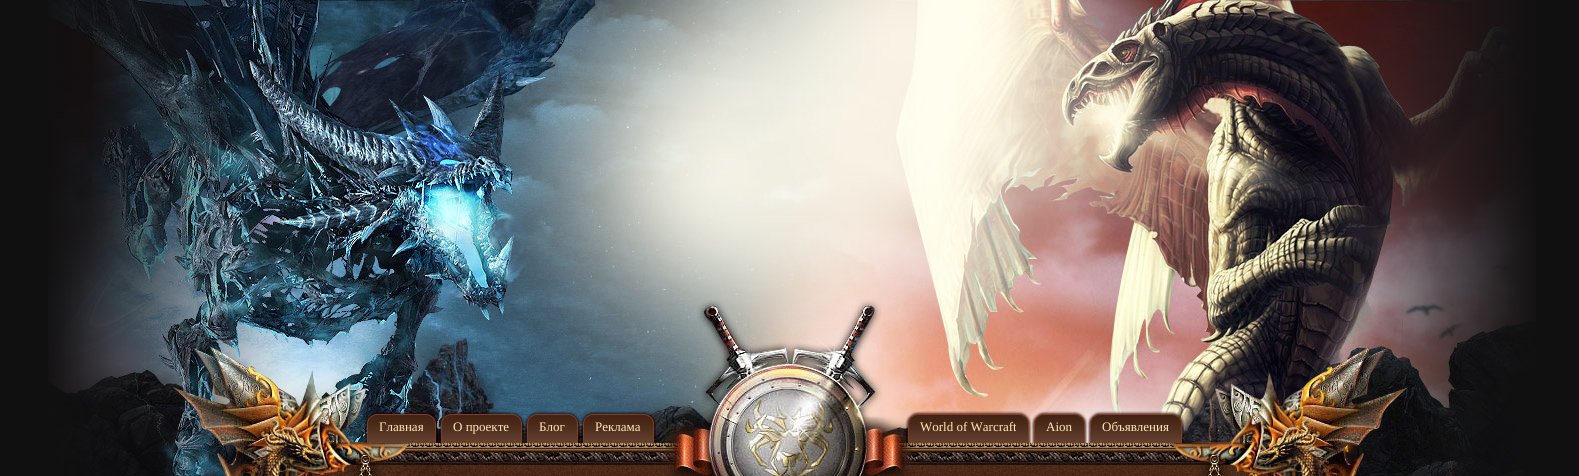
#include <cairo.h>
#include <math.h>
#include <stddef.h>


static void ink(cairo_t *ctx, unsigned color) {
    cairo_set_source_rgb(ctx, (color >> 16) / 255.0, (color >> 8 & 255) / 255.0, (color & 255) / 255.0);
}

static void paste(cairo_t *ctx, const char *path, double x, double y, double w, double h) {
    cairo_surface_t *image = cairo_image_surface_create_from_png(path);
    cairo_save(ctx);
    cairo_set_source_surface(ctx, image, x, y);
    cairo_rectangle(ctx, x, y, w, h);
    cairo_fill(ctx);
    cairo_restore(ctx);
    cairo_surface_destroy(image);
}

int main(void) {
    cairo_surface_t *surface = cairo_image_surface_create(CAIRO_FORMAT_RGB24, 1579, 476);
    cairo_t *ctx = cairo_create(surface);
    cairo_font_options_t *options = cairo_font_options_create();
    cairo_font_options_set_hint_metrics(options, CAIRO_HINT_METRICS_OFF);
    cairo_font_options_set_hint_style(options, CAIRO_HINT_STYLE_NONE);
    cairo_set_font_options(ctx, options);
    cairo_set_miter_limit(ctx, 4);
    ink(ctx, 0x101010);
    cairo_paint(ctx);
    paste(ctx, "media/1.png", 48, 0, 1488, 476);
    paste(ctx, "media/2.png", 290, 0, 1000, 443);
    paste(ctx, "media/3.png", 364, 412, 15, 31);
    paste(ctx, "media/4.png", 379, 411, 44, 32);
    cairo_select_font_face(ctx, "Liberation Serif", CAIRO_FONT_SLANT_NORMAL, CAIRO_FONT_WEIGHT_NORMAL);
    cairo_set_font_size(ctx, 13);
    ink(ctx, 0xFFE8B8);
    cairo_move_to(ctx, 379, 431);
    cairo_show_text(ctx, "Главная");
    paste(ctx, "media/5.png", 423, 412, 15, 31);
    paste(ctx, "media/6.png", 438, 411, 15, 32);
    paste(ctx, "media/7.png", 453, 411, 56, 32);
    cairo_move_to(ctx, 453, 431);
    cairo_show_text(ctx, "О проекте");
    paste(ctx, "media/8.png", 509, 411, 15, 32);
    paste(ctx, "media/9.png", 524, 411, 15, 32);
    paste(ctx, "media/10.png", 539, 411, 26, 32);
    cairo_move_to(ctx, 539, 431);
    cairo_show_text(ctx, "Блог");
    paste(ctx, "media/11.png", 565, 411, 15, 32);
    paste(ctx, "media/12.png", 580, 411, 15, 32);
    paste(ctx, "media/13.png", 595, 411, 46, 32);
    cairo_move_to(ctx, 595, 431);
    cairo_show_text(ctx, "Реклама");
    paste(ctx, "media/14.png", 641, 411, 15, 32);
    paste(ctx, "media/15.png", 905, 411, 15, 32);
    paste(ctx, "media/16.png", 920, 411, 96, 32);
    cairo_move_to(ctx, 920, 431);
    cairo_show_text(ctx, "World of Warcraft");
    paste(ctx, "media/17.png", 1016, 411, 15, 32);
    paste(ctx, "media/18.png", 1031, 411, 15, 32);
    paste(ctx, "media/19.png", 1046, 411, 26, 32);
    cairo_move_to(ctx, 1046, 431);
    cairo_show_text(ctx, "Aion");
    paste(ctx, "media/20.png", 1072, 411, 15, 32);
    paste(ctx, "media/21.png", 1087, 411, 15, 32);
    paste(ctx, "media/22.png", 1102, 411, 67, 32);
    cairo_move_to(ctx, 1102, 431);
    cairo_show_text(ctx, "Объявления");
    paste(ctx, "media/23.png", 1169, 411, 15, 32);
    paste(ctx, "media/24.png", 290, 443, 153, 33);
    paste(ctx, "media/25.png", 443, 443, 694, 33);
    paste(ctx, "media/26.png", 1137, 443, 153, 33);
    cairo_surface_write_to_png(surface, "image.png");
    cairo_font_options_destroy(options);
    cairo_destroy(ctx);
    cairo_surface_destroy(surface);
    return 0;
}
